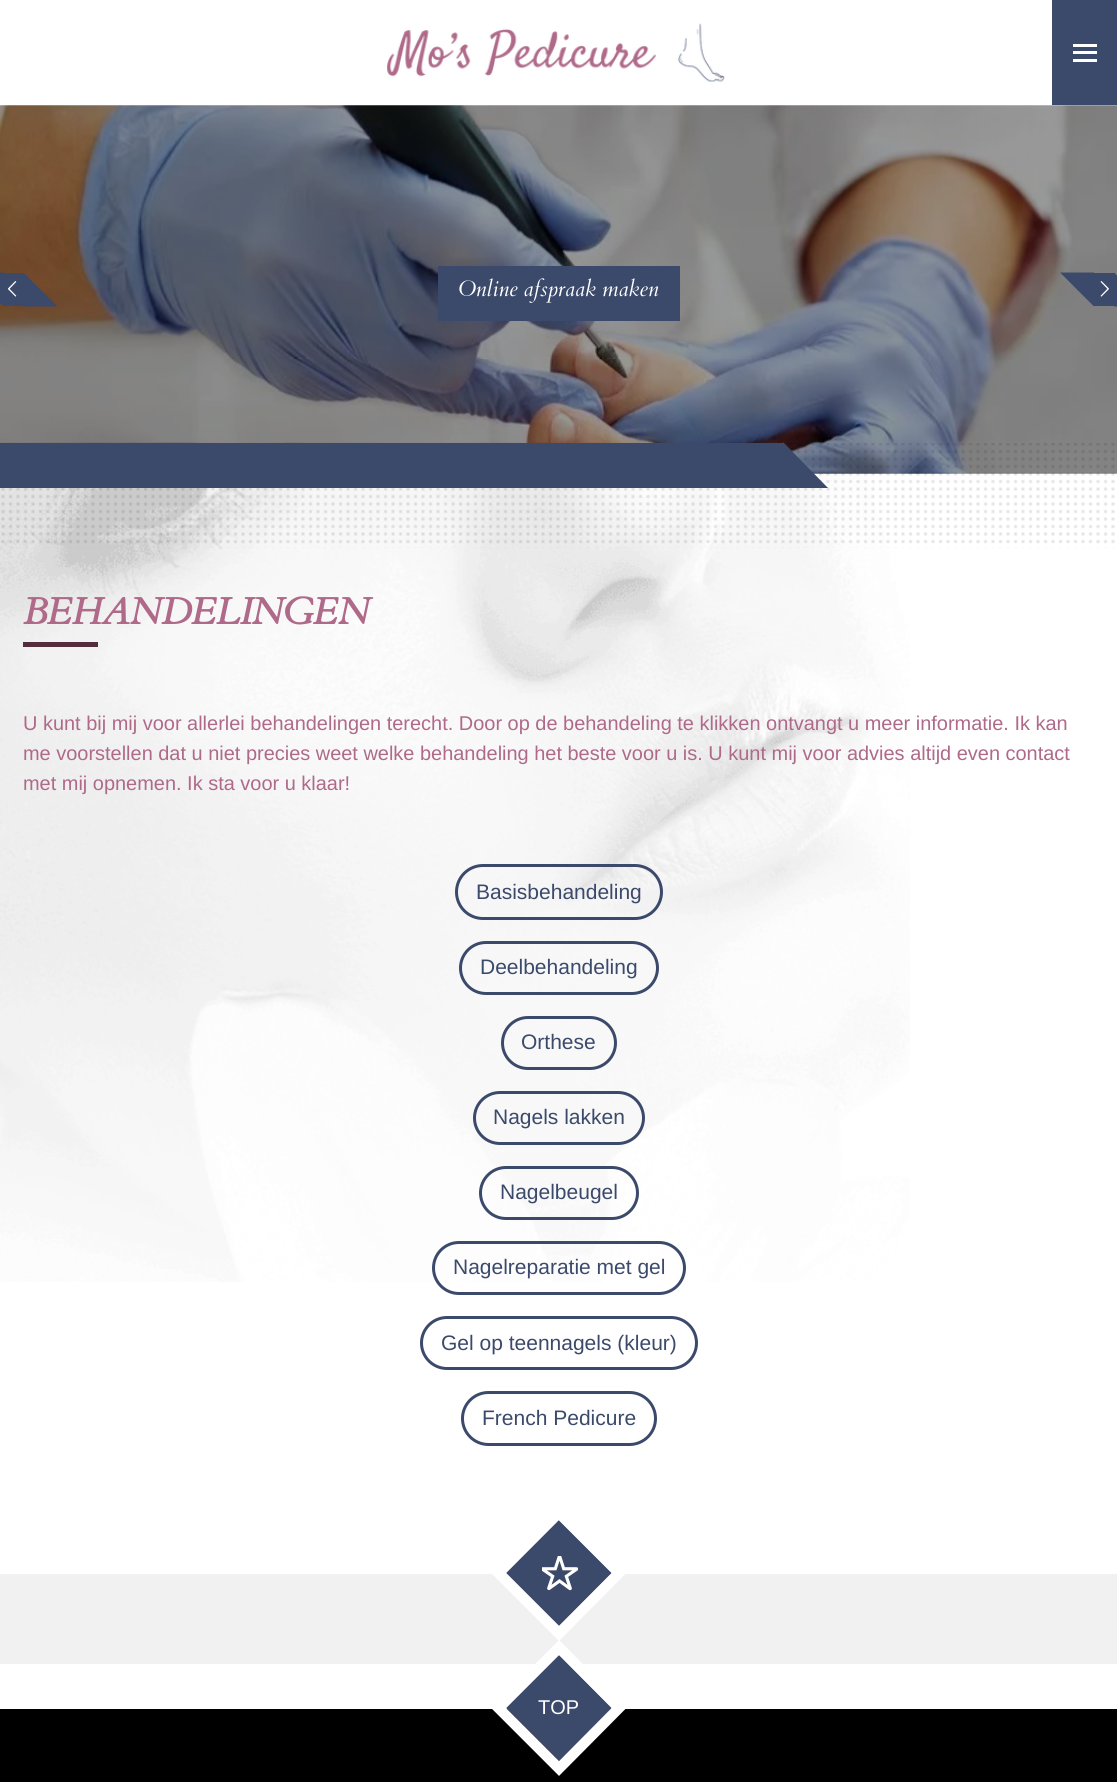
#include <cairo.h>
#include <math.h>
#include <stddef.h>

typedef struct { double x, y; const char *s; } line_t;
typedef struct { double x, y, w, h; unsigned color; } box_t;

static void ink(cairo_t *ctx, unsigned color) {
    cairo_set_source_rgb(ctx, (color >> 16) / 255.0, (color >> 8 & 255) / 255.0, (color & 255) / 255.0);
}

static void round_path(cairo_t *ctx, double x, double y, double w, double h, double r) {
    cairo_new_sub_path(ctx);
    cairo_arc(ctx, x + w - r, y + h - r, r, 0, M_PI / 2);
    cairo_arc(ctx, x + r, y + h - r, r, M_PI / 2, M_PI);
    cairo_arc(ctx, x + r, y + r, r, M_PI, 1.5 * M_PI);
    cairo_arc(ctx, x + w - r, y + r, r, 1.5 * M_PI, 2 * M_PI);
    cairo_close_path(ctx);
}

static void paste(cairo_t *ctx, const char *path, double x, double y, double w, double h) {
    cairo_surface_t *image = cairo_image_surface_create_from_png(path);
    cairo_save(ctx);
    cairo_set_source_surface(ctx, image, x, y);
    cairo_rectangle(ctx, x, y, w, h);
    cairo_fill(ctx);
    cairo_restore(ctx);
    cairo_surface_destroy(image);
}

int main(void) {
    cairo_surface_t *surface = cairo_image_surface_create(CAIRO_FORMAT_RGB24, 1117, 1782);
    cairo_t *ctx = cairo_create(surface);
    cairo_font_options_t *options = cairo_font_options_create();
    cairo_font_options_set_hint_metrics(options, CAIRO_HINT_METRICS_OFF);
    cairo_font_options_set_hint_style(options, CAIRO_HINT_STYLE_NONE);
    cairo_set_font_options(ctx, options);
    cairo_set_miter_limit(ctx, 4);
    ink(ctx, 0xFFFFFF);
    cairo_paint(ctx);
    paste(ctx, "media/1.png", 387, 23, 338, 60);
    {
        static const box_t items[] = {
            {1052, 0, 65, 105, 0x3B496B},
            {1073, 51, 24, 3, 0xFFFFFF},
            {1073, 44, 24, 3, 0xFFFFFF},
            {1073, 59, 24, 3, 0xFFFFFF},
        };
        for (size_t i = 0; i < sizeof items / sizeof *items; i++) {
            ink(ctx, items[i].color);
            cairo_rectangle(ctx, items[i].x, items[i].y, items[i].w, items[i].h);
            cairo_fill(ctx);
        }
    }
    paste(ctx, "media/4.png", 0, 105, 1117, 369);
    ink(ctx, 0x3B496B);
    cairo_rectangle(ctx, 3, 273, 21, 33);
    cairo_fill(ctx);
    paste(ctx, "media/2.png", 7, 281, 10, 16);
    cairo_new_path(ctx);
    cairo_move_to(ctx, 3.5, 272.5);
    cairo_line_to(ctx, 3.5, 306.5);
    cairo_line_to(ctx, -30.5, 272.5);
    cairo_close_path(ctx);
    cairo_move_to(ctx, 23.5, 306.5);
    cairo_line_to(ctx, 23.5, 272.5);
    cairo_line_to(ctx, 57.5, 306.5);
    cairo_close_path(ctx);
    cairo_fill(ctx);
    cairo_rectangle(ctx, 1094, 273, 21, 33);
    cairo_fill(ctx);
    paste(ctx, "media/3.png", 1100, 281, 9, 16);
    cairo_new_path(ctx);
    cairo_move_to(ctx, 1094, 272.5);
    cairo_line_to(ctx, 1094, 306.5);
    cairo_line_to(ctx, 1060, 272.5);
    cairo_close_path(ctx);
    cairo_move_to(ctx, 1114, 306.5);
    cairo_line_to(ctx, 1114, 272.5);
    cairo_line_to(ctx, 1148, 306.5);
    cairo_close_path(ctx);
    cairo_fill(ctx);
    cairo_rectangle(ctx, 438, 266, 242, 55);
    cairo_fill(ctx);
    cairo_select_font_face(ctx, "Cardo", CAIRO_FONT_SLANT_ITALIC, CAIRO_FONT_WEIGHT_NORMAL);
    cairo_set_font_size(ctx, 22);
    ink(ctx, 0xFFFFFF);
    cairo_move_to(ctx, 458, 296);
    cairo_show_text(ctx, "Online afspraak maken");
    paste(ctx, "media/5.png", 1, 443, 1114, 105);
    paste(ctx, "media/6.png", 0, 442, 910, 840);
    ink(ctx, 0x3B496B);
    cairo_rectangle(ctx, 0, 443, 783, 45);
    cairo_fill(ctx);
    cairo_new_path(ctx);
    cairo_move_to(ctx, 783, 488);
    cairo_line_to(ctx, 783, 442);
    cairo_line_to(ctx, 828, 488);
    cairo_close_path(ctx);
    cairo_fill(ctx);
    cairo_select_font_face(ctx, "Cardo", CAIRO_FONT_SLANT_ITALIC, CAIRO_FONT_WEIGHT_BOLD);
    cairo_set_font_size(ctx, 37.5);
    ink(ctx, 0xAF6989);
    cairo_move_to(ctx, 23, 624);
    cairo_show_text(ctx, "BEHANDELINGEN");
    ink(ctx, 0x532C3E);
    cairo_rectangle(ctx, 23, 642, 75, 5);
    cairo_fill(ctx);
    cairo_select_font_face(ctx, "Liberation Sans", CAIRO_FONT_SLANT_NORMAL, CAIRO_FONT_WEIGHT_NORMAL);
    cairo_set_font_size(ctx, 19.95);
    ink(ctx, 0xAF6989);
    {
        static const line_t items[] = {
            {23, 730, "U kunt bij mij voor allerlei behandelingen terecht. Door op de behandeling te klikken ontvangt u meer informatie. Ik kan"},
            {23, 760, "me voorstellen dat u niet precies weet welke behandeling het beste voor u is. U kunt mij voor advies altijd even contact"},
            {23, 790, "met mij opnemen. Ik sta voor u klaar!"},
        };
        for (size_t i = 0; i < sizeof items / sizeof *items; i++) {
            cairo_move_to(ctx, items[i].x, items[i].y);
            cairo_show_text(ctx, items[i].s);
        }
    }
    round_path(ctx, 456.5, 865.5, 205, 53, 26.5);
    ink(ctx, 0x3B496B);
    cairo_set_line_width(ctx, 3);
    cairo_stroke(ctx);
    cairo_set_font_size(ctx, 21);
    cairo_move_to(ctx, 476, 899);
    cairo_show_text(ctx, "Basisbehandeling");
    round_path(ctx, 460.5, 942.5, 197, 51, 25.5);
    cairo_stroke(ctx);
    cairo_move_to(ctx, 480, 974);
    cairo_show_text(ctx, "Deelbehandeling");
    round_path(ctx, 502.5, 1017.5, 113, 51, 25.5);
    cairo_stroke(ctx);
    cairo_move_to(ctx, 521, 1049);
    cairo_show_text(ctx, "Orthese");
    round_path(ctx, 474.5, 1092.5, 169, 51, 25.5);
    cairo_stroke(ctx);
    cairo_move_to(ctx, 493, 1124);
    cairo_show_text(ctx, "Nagels lakken");
    round_path(ctx, 480.5, 1167.5, 157, 51, 25.5);
    cairo_stroke(ctx);
    cairo_move_to(ctx, 500, 1199);
    cairo_show_text(ctx, "Nagelbeugel");
    round_path(ctx, 433.5, 1242.5, 251, 51, 25.5);
    cairo_stroke(ctx);
    cairo_move_to(ctx, 453, 1274);
    cairo_show_text(ctx, "Nagelreparatie met gel");
    round_path(ctx, 421.5, 1317.5, 275, 51, 25.5);
    cairo_stroke(ctx);
    cairo_move_to(ctx, 441, 1350);
    cairo_show_text(ctx, "Gel op teennagels (kleur)");
    round_path(ctx, 462.5, 1392.5, 193, 52, 26);
    cairo_stroke(ctx);
    cairo_move_to(ctx, 482, 1425);
    cairo_show_text(ctx, "French Pedicure");
    ink(ctx, 0xF1F1F1);
    cairo_rectangle(ctx, 0, 1574, 1117, 90);
    cairo_fill(ctx);
    ink(ctx, 0x3B496B);
    cairo_new_path(ctx);
    cairo_move_to(ctx, 559, 1520);
    cairo_line_to(ctx, 612, 1573);
    cairo_line_to(ctx, 559, 1626);
    cairo_line_to(ctx, 506, 1573);
    cairo_close_path(ctx);
    cairo_fill(ctx);
    cairo_new_path(ctx);
    cairo_move_to(ctx, 558.5, 1512.5);
    cairo_line_to(ctx, 619, 1573);
    cairo_line_to(ctx, 559, 1633.5);
    cairo_line_to(ctx, 498.5, 1573);
    cairo_close_path(ctx);
    ink(ctx, 0xFFFFFF);
    cairo_set_line_width(ctx, 10.5);
    cairo_stroke(ctx);
    paste(ctx, "media/7.png", 542, 1556, 36, 35);
    ink(ctx, 0x000000);
    cairo_rectangle(ctx, 0, 1709, 1117, 73);
    cairo_fill(ctx);
    ink(ctx, 0x3B496B);
    cairo_new_path(ctx);
    cairo_move_to(ctx, 559, 1655);
    cairo_line_to(ctx, 612, 1708);
    cairo_line_to(ctx, 559, 1761);
    cairo_line_to(ctx, 506, 1708);
    cairo_close_path(ctx);
    cairo_fill(ctx);
    cairo_new_path(ctx);
    cairo_move_to(ctx, 559, 1647.5);
    cairo_line_to(ctx, 619, 1708);
    cairo_line_to(ctx, 559, 1768.5);
    cairo_line_to(ctx, 498.5, 1708);
    cairo_close_path(ctx);
    ink(ctx, 0xFFFFFF);
    cairo_stroke(ctx);
    cairo_set_font_size(ctx, 19.95);
    cairo_move_to(ctx, 538, 1714);
    cairo_show_text(ctx, "TOP");
    cairo_surface_write_to_png(surface, "image.png");
    cairo_font_options_destroy(options);
    cairo_destroy(ctx);
    cairo_surface_destroy(surface);
    return 0;
}
